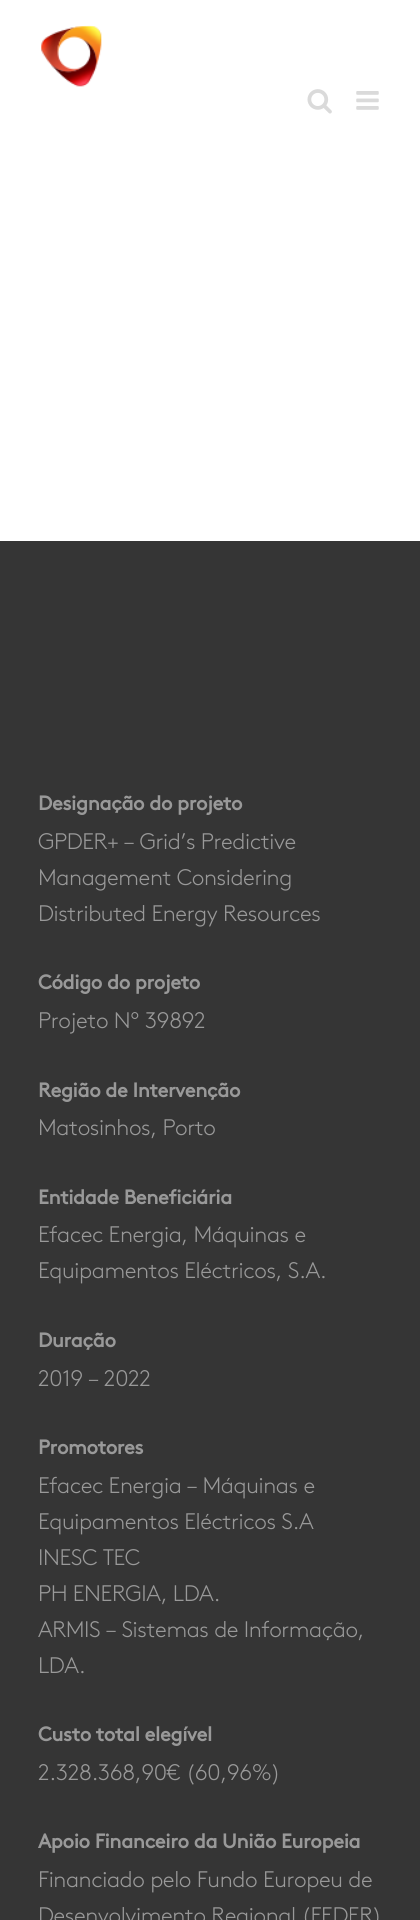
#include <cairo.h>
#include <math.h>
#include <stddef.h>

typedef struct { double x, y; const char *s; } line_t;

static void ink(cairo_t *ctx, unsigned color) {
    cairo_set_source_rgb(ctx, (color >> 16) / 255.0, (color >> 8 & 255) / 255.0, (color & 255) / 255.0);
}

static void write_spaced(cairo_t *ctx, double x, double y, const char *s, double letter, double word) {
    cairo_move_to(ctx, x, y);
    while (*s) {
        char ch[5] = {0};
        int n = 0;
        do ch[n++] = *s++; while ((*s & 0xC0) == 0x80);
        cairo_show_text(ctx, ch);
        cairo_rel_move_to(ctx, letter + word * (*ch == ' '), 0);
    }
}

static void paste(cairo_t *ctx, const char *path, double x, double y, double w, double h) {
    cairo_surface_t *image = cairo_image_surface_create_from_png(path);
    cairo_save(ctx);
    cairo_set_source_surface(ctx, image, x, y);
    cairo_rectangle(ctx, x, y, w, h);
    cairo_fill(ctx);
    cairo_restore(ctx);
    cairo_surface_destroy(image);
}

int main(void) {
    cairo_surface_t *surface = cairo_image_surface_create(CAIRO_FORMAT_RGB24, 420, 1920);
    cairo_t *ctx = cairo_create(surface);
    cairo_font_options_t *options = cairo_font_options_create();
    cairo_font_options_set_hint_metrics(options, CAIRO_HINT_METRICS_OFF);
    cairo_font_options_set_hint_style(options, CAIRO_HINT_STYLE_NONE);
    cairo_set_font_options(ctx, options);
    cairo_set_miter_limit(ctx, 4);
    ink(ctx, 0xFFFFFF);
    cairo_paint(ctx);
    paste(ctx, "media/1.png", 41, 25, 61, 62);
    paste(ctx, "media/2.png", 307, 89, 25, 25);
    paste(ctx, "media/3.png", 356, 91, 23, 19);
    ink(ctx, 0x353535);
    cairo_rectangle(ctx, 0, 541, 420, 1379);
    cairo_fill(ctx);
    cairo_select_font_face(ctx, "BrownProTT", CAIRO_FONT_SLANT_NORMAL, CAIRO_FONT_WEIGHT_BOLD);
    cairo_set_font_size(ctx, 20);
    ink(ctx, 0x999999);
    write_spaced(ctx, 38, 810, "Designação do projeto", -0.4, 0);
    cairo_select_font_face(ctx, "BrownProTT Light", CAIRO_FONT_SLANT_NORMAL, CAIRO_FONT_WEIGHT_NORMAL);
    cairo_set_font_size(ctx, 22.5);
    {
        static const line_t items[] = {
            {38, 849, "GPDER+ – Grid’s Predictive"},
            {38, 885, "Management Considering"},
            {38, 921, "Distributed Energy Resources"},
        };
        for (size_t i = 0; i < sizeof items / sizeof *items; i++) {
            write_spaced(ctx, items[i].x, items[i].y, items[i].s, -0.4, 0);
        }
    }
    cairo_select_font_face(ctx, "BrownProTT", CAIRO_FONT_SLANT_NORMAL, CAIRO_FONT_WEIGHT_BOLD);
    cairo_set_font_size(ctx, 20);
    write_spaced(ctx, 38, 989, "Código do projeto", -0.4, 0);
    cairo_select_font_face(ctx, "BrownProTT Light", CAIRO_FONT_SLANT_NORMAL, CAIRO_FONT_WEIGHT_NORMAL);
    cairo_set_font_size(ctx, 22.5);
    write_spaced(ctx, 38, 1028, "Projeto Nº 39892", -0.4, 0);
    cairo_select_font_face(ctx, "BrownProTT", CAIRO_FONT_SLANT_NORMAL, CAIRO_FONT_WEIGHT_BOLD);
    cairo_set_font_size(ctx, 20);
    write_spaced(ctx, 38, 1097, "Região de Intervenção", -0.4, 0);
    cairo_select_font_face(ctx, "BrownProTT Light", CAIRO_FONT_SLANT_NORMAL, CAIRO_FONT_WEIGHT_NORMAL);
    cairo_set_font_size(ctx, 22.5);
    write_spaced(ctx, 38, 1135, "Matosinhos, Porto", -0.4, 0);
    cairo_select_font_face(ctx, "BrownProTT", CAIRO_FONT_SLANT_NORMAL, CAIRO_FONT_WEIGHT_BOLD);
    cairo_set_font_size(ctx, 20);
    write_spaced(ctx, 38, 1204, "Entidade Beneficiária", -0.4, 0);
    cairo_select_font_face(ctx, "BrownProTT Light", CAIRO_FONT_SLANT_NORMAL, CAIRO_FONT_WEIGHT_NORMAL);
    cairo_set_font_size(ctx, 22.5);
    write_spaced(ctx, 38, 1242, "Efacec Energia, Máquinas e", -0.4, 0);
    write_spaced(ctx, 38, 1278, "Equipamentos Eléctricos, S.A.", -0.4, 0);
    cairo_select_font_face(ctx, "BrownProTT", CAIRO_FONT_SLANT_NORMAL, CAIRO_FONT_WEIGHT_BOLD);
    cairo_set_font_size(ctx, 20);
    write_spaced(ctx, 38, 1347, "Duração", -0.4, 0);
    cairo_select_font_face(ctx, "BrownProTT Light", CAIRO_FONT_SLANT_NORMAL, CAIRO_FONT_WEIGHT_NORMAL);
    cairo_set_font_size(ctx, 22.5);
    write_spaced(ctx, 38, 1386, "2019 – 2022", -0.4, 0);
    cairo_select_font_face(ctx, "BrownProTT", CAIRO_FONT_SLANT_NORMAL, CAIRO_FONT_WEIGHT_BOLD);
    cairo_set_font_size(ctx, 20);
    write_spaced(ctx, 38, 1454, "Promotores", -0.4, 0);
    cairo_select_font_face(ctx, "BrownProTT Light", CAIRO_FONT_SLANT_NORMAL, CAIRO_FONT_WEIGHT_NORMAL);
    cairo_set_font_size(ctx, 22.5);
    {
        static const line_t items[] = {
            {38, 1493, "Efacec Energia – Máquinas e"},
            {38, 1529, "Equipamentos Eléctricos S.A"},
            {38, 1565, "INESC TEC"},
            {38, 1601, "PH ENERGIA, LDA."},
            {38, 1637, "ARMIS – Sistemas de Informação,"},
            {38, 1673, "LDA."},
        };
        for (size_t i = 0; i < sizeof items / sizeof *items; i++) {
            write_spaced(ctx, items[i].x, items[i].y, items[i].s, -0.4, 0);
        }
    }
    cairo_select_font_face(ctx, "BrownProTT", CAIRO_FONT_SLANT_NORMAL, CAIRO_FONT_WEIGHT_BOLD);
    cairo_set_font_size(ctx, 20);
    write_spaced(ctx, 38, 1741, "Custo total elegível", -0.4, 0);
    cairo_select_font_face(ctx, "BrownProTT Light", CAIRO_FONT_SLANT_NORMAL, CAIRO_FONT_WEIGHT_NORMAL);
    cairo_set_font_size(ctx, 22.5);
    write_spaced(ctx, 38, 1780, "2.328.368,90€ (60,96%)", -0.4, 0);
    cairo_select_font_face(ctx, "BrownProTT", CAIRO_FONT_SLANT_NORMAL, CAIRO_FONT_WEIGHT_BOLD);
    cairo_set_font_size(ctx, 20);
    write_spaced(ctx, 38, 1848, "Apoio Financeiro da União Europeia", -0.4, 0);
    cairo_select_font_face(ctx, "BrownProTT Light", CAIRO_FONT_SLANT_NORMAL, CAIRO_FONT_WEIGHT_NORMAL);
    cairo_set_font_size(ctx, 22.5);
    write_spaced(ctx, 38, 1887, "Financiado pelo Fundo Europeu de", -0.4, 0);
    write_spaced(ctx, 38, 1923, "Desenvolvimento Regional (FEDER)", -0.4, 0);
    cairo_surface_write_to_png(surface, "image.png");
    cairo_font_options_destroy(options);
    cairo_destroy(ctx);
    cairo_surface_destroy(surface);
    return 0;
}
